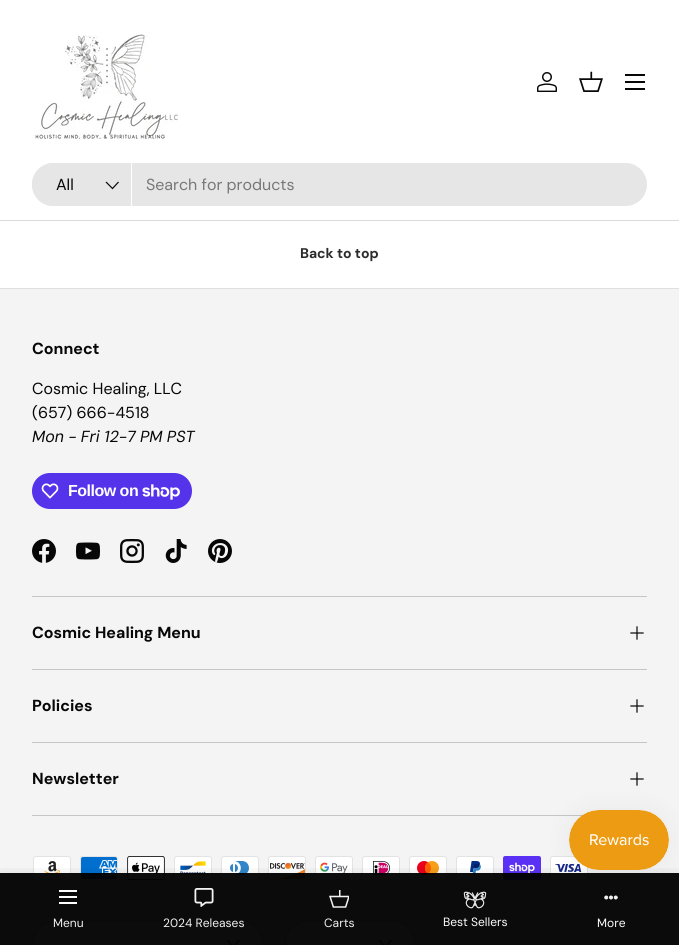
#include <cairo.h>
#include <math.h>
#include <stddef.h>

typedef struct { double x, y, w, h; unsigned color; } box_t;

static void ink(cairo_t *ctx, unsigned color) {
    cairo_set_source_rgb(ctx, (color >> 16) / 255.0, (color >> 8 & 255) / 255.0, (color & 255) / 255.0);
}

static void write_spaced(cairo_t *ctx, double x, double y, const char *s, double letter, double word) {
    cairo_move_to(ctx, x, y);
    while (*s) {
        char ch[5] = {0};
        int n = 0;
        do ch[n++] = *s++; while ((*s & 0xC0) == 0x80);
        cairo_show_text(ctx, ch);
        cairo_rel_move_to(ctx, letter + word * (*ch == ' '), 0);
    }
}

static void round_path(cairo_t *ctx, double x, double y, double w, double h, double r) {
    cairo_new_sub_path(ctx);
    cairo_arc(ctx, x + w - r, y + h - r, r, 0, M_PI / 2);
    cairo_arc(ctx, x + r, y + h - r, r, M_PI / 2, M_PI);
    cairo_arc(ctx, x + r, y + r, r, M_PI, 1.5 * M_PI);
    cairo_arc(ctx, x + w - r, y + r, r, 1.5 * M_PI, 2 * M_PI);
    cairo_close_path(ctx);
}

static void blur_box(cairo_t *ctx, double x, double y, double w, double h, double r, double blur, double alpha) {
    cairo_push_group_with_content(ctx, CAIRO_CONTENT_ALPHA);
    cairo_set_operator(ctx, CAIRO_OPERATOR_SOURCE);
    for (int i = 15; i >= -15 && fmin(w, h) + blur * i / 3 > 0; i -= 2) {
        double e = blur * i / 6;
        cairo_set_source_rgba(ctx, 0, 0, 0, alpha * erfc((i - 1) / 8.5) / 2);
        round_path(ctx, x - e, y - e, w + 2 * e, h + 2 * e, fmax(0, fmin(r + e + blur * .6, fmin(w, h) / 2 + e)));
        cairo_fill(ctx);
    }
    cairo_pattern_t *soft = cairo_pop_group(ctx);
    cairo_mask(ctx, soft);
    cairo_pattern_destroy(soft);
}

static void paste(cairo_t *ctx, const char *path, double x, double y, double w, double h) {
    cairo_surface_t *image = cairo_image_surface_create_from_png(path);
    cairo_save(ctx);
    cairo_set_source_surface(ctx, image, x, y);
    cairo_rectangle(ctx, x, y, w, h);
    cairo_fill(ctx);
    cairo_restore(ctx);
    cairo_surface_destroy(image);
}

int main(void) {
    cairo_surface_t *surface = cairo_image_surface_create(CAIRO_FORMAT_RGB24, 679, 945);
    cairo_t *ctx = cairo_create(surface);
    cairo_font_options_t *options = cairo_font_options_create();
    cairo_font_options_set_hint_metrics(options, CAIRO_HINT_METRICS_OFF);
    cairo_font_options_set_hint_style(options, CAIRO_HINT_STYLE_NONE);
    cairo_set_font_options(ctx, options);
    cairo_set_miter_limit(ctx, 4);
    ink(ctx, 0xFFFFFF);
    cairo_paint(ctx);
    ink(ctx, 0xDADADA);
    cairo_rectangle(ctx, 0, 220, 679, 1);
    cairo_fill(ctx);
    paste(ctx, "media/1.png", 32, 33, 146, 110);
    paste(ctx, "media/2.png", 537, 72, 20, 20);
    paste(ctx, "media/3.png", 579, 71, 24, 21);
    {
        static const box_t items[] = {
            {625, 74, 20, 2, 0x070707},
            {625, 88, 20, 2, 0x070707},
            {625, 81, 20, 2, 0x070707},
        };
        for (size_t i = 0; i < sizeof items / sizeof *items; i++) {
            ink(ctx, items[i].color);
            cairo_rectangle(ctx, items[i].x, items[i].y, items[i].w, items[i].h);
            cairo_fill(ctx);
        }
    }
    ink(ctx, 0xE6E6E6);
    round_path(ctx, 32, 163, 615, 43, 21.5);
    cairo_fill(ctx);
    cairo_new_path(ctx);
    cairo_move_to(ctx, 53.5, 163);
    cairo_line_to(ctx, 132, 163);
    cairo_line_to(ctx, 132, 206);
    cairo_line_to(ctx, 53.5, 206);
    cairo_curve_to(ctx, 41.5, 206, 32, 196.5, 32, 184.5);
    cairo_curve_to(ctx, 32, 172.5, 41.5, 163, 53.5, 163);
    cairo_close_path(ctx);
    cairo_fill(ctx);
    ink(ctx, 0xFFFFFF);
    cairo_rectangle(ctx, 131, 163, 1, 43);
    cairo_fill(ctx);
    cairo_select_font_face(ctx, "DM Sans", CAIRO_FONT_SLANT_NORMAL, CAIRO_FONT_WEIGHT_NORMAL);
    cairo_set_font_size(ctx, 16);
    ink(ctx, 0x070707);
    cairo_move_to(ctx, 56, 190);
    cairo_show_text(ctx, "All");
    cairo_new_path(ctx);
    cairo_move_to(ctx, 118.5, 182);
    cairo_line_to(ctx, 112.5, 188.5);
    cairo_line_to(ctx, 106, 182);
    cairo_set_line_width(ctx, 1.2);
    cairo_stroke(ctx);
    ink(ctx, 0x777777);
    cairo_move_to(ctx, 146, 190);
    cairo_show_text(ctx, "Search for products");
    ink(ctx, 0xF4F4F4);
    cairo_rectangle(ctx, 0, 289, 679, 656);
    cairo_fill(ctx);
    paste(ctx, "media/16.png", 33, 856, 38, 24);
    paste(ctx, "media/17.png", 80, 856, 38, 24);
    paste(ctx, "media/18.png", 127, 856, 38, 24);
    paste(ctx, "media/19.png", 174, 856, 38, 24);
    paste(ctx, "media/20.png", 221, 856, 38, 24);
    paste(ctx, "media/21.png", 268, 856, 38, 24);
    paste(ctx, "media/22.png", 315, 856, 38, 24);
    paste(ctx, "media/23.png", 362, 856, 38, 24);
    paste(ctx, "media/24.png", 409, 856, 38, 24);
    paste(ctx, "media/25.png", 456, 856, 38, 24);
    paste(ctx, "media/26.png", 503, 856, 38, 24);
    paste(ctx, "media/27.png", 550, 856, 38, 24);
    ink(ctx, 0xFFFFFF);
    round_path(ctx, 32, 920, 232, 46, 23);
    cairo_fill(ctx);
    round_path(ctx, 33, 921, 230, 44, 22);
    cairo_set_source_rgba(ctx, 0.027, 0.027, 0.027, 0.2);
    cairo_set_line_width(ctx, 2);
    cairo_stroke(ctx);
    cairo_new_path(ctx);
    cairo_move_to(ctx, 239.5, 940);
    cairo_line_to(ctx, 233.5, 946.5);
    cairo_line_to(ctx, 227, 940);
    ink(ctx, 0x2A2B2A);
    cairo_set_line_width(ctx, 1.2);
    cairo_stroke(ctx);
    ink(ctx, 0xFFFFFF);
    round_path(ctx, 284, 920, 132, 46, 23);
    cairo_fill(ctx);
    round_path(ctx, 285, 921, 130, 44, 22);
    cairo_set_source_rgba(ctx, 0.027, 0.027, 0.027, 0.2);
    cairo_set_line_width(ctx, 2);
    cairo_stroke(ctx);
    cairo_new_path(ctx);
    cairo_move_to(ctx, 391.5, 940);
    cairo_line_to(ctx, 385.5, 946.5);
    cairo_line_to(ctx, 379, 940);
    ink(ctx, 0x2A2B2A);
    cairo_set_line_width(ctx, 1.2);
    cairo_stroke(ctx);
    cairo_save(ctx);
    cairo_rectangle(ctx, 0, 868, 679, 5);
    cairo_clip(ctx);
    ink(ctx, 0x000000);
    blur_box(ctx, 0, 869, 679, 72, 0, 4, 0.05);
    cairo_restore(ctx);
    cairo_set_source_rgba(ctx, 0, 0, 0, 0.95);
    cairo_rectangle(ctx, 0, 873, 679, 72);
    cairo_fill(ctx);
    ink(ctx, 0xFEFEFE);
    cairo_rectangle(ctx, 59, 890, 18, 2);
    cairo_fill(ctx);
    cairo_rectangle(ctx, 59, 902, 18, 2);
    cairo_fill(ctx);
    cairo_rectangle(ctx, 59, 896, 18, 2);
    cairo_fill(ctx);
    cairo_select_font_face(ctx, "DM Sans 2", CAIRO_FONT_SLANT_NORMAL, CAIRO_FONT_WEIGHT_NORMAL);
    cairo_set_font_size(ctx, 12);
    ink(ctx, 0xF3F3F3);
    cairo_move_to(ctx, 53, 927);
    cairo_show_text(ctx, "Menu");
    paste(ctx, "media/4.png", 194, 888, 20, 19);
    cairo_move_to(ctx, 163, 927);
    cairo_show_text(ctx, "2024 Releases");
    paste(ctx, "media/5.png", 329, 890, 20, 18);
    cairo_move_to(ctx, 324, 927);
    cairo_show_text(ctx, "Carts");
    paste(ctx, "media/6.png", 463, 891, 24, 18);
    ink(ctx, 0xFFFFFF);
    cairo_move_to(ctx, 443, 926);
    cairo_show_text(ctx, "Best Sellers");
    paste(ctx, "media/7.png", 604, 895, 14, 5);
    cairo_move_to(ctx, 597, 927);
    cairo_show_text(ctx, "More");
    ink(ctx, 0xDFDFDF);
    cairo_rectangle(ctx, 0, 288, 679, 1);
    cairo_fill(ctx);
    cairo_select_font_face(ctx, "DM Sans", CAIRO_FONT_SLANT_NORMAL, CAIRO_FONT_WEIGHT_BOLD);
    cairo_set_font_size(ctx, 14);
    ink(ctx, 0x2A2B2A);
    cairo_move_to(ctx, 300, 258);
    cairo_show_text(ctx, "Back to top");
    cairo_select_font_face(ctx, "DM Sans 2", CAIRO_FONT_SLANT_NORMAL, CAIRO_FONT_WEIGHT_BOLD);
    cairo_set_font_size(ctx, 16);
    ink(ctx, 0x070707);
    cairo_move_to(ctx, 32, 354);
    cairo_show_text(ctx, "Connect");
    cairo_select_font_face(ctx, "DM Sans", CAIRO_FONT_SLANT_NORMAL, CAIRO_FONT_WEIGHT_NORMAL);
    cairo_move_to(ctx, 32, 394);
    cairo_show_text(ctx, "Cosmic Healing, LLC");
    cairo_move_to(ctx, 32, 418);
    cairo_show_text(ctx, "(657) 666-4518");
    cairo_select_font_face(ctx, "DM Sans", CAIRO_FONT_SLANT_ITALIC, CAIRO_FONT_WEIGHT_NORMAL);
    cairo_move_to(ctx, 32, 442);
    cairo_show_text(ctx, "Mon - Fri 12-7 PM PST");
    ink(ctx, 0x5433EB);
    round_path(ctx, 32, 473, 160, 36, 18);
    cairo_fill(ctx);
    paste(ctx, "media/8.png", 41, 483, 18, 16);
    cairo_select_font_face(ctx, "Liberation Sans", CAIRO_FONT_SLANT_NORMAL, CAIRO_FONT_WEIGHT_BOLD);
    ink(ctx, 0xFFFFFF);
    write_spaced(ctx, 68, 496, "Follow on", -0.5, 0);
    paste(ctx, "media/9.png", 142, 484, 38, 16);
    paste(ctx, "media/10.png", 32, 539, 24, 24);
    paste(ctx, "media/11.png", 76, 542, 24, 18);
    paste(ctx, "media/12.png", 120, 539, 24, 24);
    paste(ctx, "media/13.png", 165, 539, 22, 24);
    paste(ctx, "media/14.png", 208, 539, 24, 24);
    ink(ctx, 0xC5C5C5);
    cairo_rectangle(ctx, 32, 596, 615, 1);
    cairo_fill(ctx);
    cairo_rectangle(ctx, 32, 669, 615, 1);
    cairo_fill(ctx);
    cairo_select_font_face(ctx, "DM Sans 2", CAIRO_FONT_SLANT_NORMAL, CAIRO_FONT_WEIGHT_BOLD);
    ink(ctx, 0x070707);
    cairo_move_to(ctx, 32, 638);
    cairo_show_text(ctx, "Cosmic Healing Menu");
    paste(ctx, "media/15.png", 630, 626, 14, 14);
    ink(ctx, 0xC5C5C5);
    cairo_rectangle(ctx, 32, 742, 615, 1);
    cairo_fill(ctx);
    ink(ctx, 0x070707);
    cairo_move_to(ctx, 32, 711);
    cairo_show_text(ctx, "Policies");
    paste(ctx, "media/15.png", 630, 699, 14, 14);
    ink(ctx, 0xC5C5C5);
    cairo_rectangle(ctx, 32, 815, 551, 1);
    cairo_fill(ctx);
    ink(ctx, 0x070707);
    cairo_move_to(ctx, 32, 784);
    cairo_show_text(ctx, "Newsletter");
    paste(ctx, "media/15.png", 630, 772, 14, 14);
    ink(ctx, 0x000000);
    blur_box(ctx, 569, 810, 100, 60, 30, 12.5, 0.05);
    paste(ctx, "media/28.png", 569, 810, 100, 60);
    cairo_surface_write_to_png(surface, "image.png");
    cairo_font_options_destroy(options);
    cairo_destroy(ctx);
    cairo_surface_destroy(surface);
    return 0;
}
